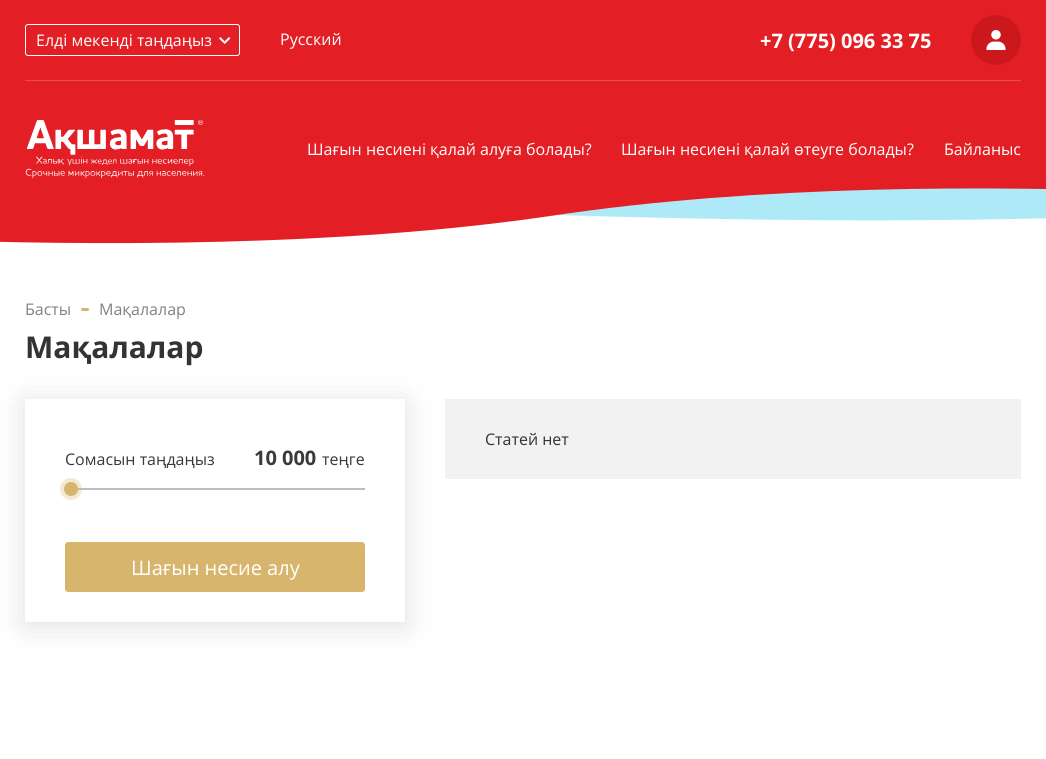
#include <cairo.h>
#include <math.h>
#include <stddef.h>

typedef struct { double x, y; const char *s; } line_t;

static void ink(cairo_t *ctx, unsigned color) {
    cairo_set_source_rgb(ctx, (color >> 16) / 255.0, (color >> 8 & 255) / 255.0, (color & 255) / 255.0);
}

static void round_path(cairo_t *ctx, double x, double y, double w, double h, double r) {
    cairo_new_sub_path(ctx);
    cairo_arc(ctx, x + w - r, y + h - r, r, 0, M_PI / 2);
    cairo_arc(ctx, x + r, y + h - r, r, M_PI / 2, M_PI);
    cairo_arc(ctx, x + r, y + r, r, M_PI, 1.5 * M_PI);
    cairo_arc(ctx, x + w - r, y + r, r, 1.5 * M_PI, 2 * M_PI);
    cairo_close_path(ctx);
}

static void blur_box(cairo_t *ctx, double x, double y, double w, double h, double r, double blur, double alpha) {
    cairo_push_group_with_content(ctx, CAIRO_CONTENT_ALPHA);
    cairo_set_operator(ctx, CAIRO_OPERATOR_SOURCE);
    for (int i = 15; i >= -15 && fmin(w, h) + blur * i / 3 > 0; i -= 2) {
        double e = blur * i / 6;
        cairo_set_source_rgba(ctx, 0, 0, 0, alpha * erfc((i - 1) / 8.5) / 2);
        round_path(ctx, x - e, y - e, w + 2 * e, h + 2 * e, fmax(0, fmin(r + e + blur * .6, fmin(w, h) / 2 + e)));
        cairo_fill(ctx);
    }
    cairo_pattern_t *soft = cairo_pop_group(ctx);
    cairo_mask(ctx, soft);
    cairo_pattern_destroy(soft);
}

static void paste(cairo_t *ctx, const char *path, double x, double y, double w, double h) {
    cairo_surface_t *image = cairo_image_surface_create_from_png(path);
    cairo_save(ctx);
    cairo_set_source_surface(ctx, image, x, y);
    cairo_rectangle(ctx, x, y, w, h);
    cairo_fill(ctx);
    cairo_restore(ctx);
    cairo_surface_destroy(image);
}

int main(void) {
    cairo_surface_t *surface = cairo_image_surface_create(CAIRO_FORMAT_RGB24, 1046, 759);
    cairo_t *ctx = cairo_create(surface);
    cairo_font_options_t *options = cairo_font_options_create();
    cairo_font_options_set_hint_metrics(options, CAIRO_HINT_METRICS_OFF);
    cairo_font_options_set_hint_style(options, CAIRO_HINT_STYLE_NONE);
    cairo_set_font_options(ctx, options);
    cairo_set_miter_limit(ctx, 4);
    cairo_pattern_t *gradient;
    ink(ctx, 0xFFFFFF);
    cairo_paint(ctx);
    gradient = cairo_pattern_create_linear(523, 244, 523, 0);
    cairo_pattern_add_color_stop_rgba(gradient, 0, 1, 1, 1, 1);
    cairo_pattern_add_color_stop_rgba(gradient, 0.49, 1, 1, 1, 1);
    cairo_pattern_add_color_stop_rgba(gradient, 0.5, 0.89, 0.118, 0.141, 1);
    cairo_pattern_add_color_stop_rgba(gradient, 1, 0.89, 0.118, 0.141, 1);
    cairo_set_source(ctx, gradient);
    cairo_pattern_destroy(gradient);
    cairo_rectangle(ctx, 0, 0, 1046, 124);
    cairo_fill(ctx);
    ink(ctx, 0xAEE9F7);
    cairo_new_path(ctx);
    cairo_move_to(ctx, 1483, 60);
    cairo_line_to(ctx, -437, 60);
    cairo_line_to(ctx, -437, 169);
    cairo_curve_to(ctx, -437, 169, 216, 210, 722, 219);
    cairo_curve_to(ctx, 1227, 228, 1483, 189, 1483, 189);
    cairo_close_path(ctx);
    cairo_fill(ctx);
    ink(ctx, 0xE31E24);
    cairo_new_path(ctx);
    cairo_move_to(ctx, -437, 60);
    cairo_line_to(ctx, 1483, 60);
    cairo_line_to(ctx, 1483, 216);
    cairo_curve_to(ctx, 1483, 216, 963, 154, 550, 216);
    cairo_curve_to(ctx, 136, 277, -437, 216, -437, 216);
    cairo_close_path(ctx);
    cairo_fill(ctx);
    ink(ctx, 0xE94B50);
    cairo_rectangle(ctx, 25, 80, 996, 1);
    cairo_fill(ctx);
    round_path(ctx, 25.5, 24.5, 214, 31, 2.5);
    ink(ctx, 0xFFFFFF);
    cairo_set_line_width(ctx, 1);
    cairo_stroke(ctx);
    cairo_select_font_face(ctx, "Open Sans", CAIRO_FONT_SLANT_NORMAL, CAIRO_FONT_WEIGHT_NORMAL);
    cairo_set_font_size(ctx, 16);
    cairo_move_to(ctx, 36, 46);
    cairo_show_text(ctx, "Елді мекенді таңдаңыз");
    paste(ctx, "media/1.png", 219, 37, 12, 7);
    cairo_move_to(ctx, 280, 45);
    cairo_show_text(ctx, "Русский");
    cairo_select_font_face(ctx, "Open Sans", CAIRO_FONT_SLANT_NORMAL, CAIRO_FONT_WEIGHT_BOLD);
    cairo_set_font_size(ctx, 20);
    cairo_move_to(ctx, 760, 48);
    cairo_show_text(ctx, "+7 (775) 096 33 75");
    ink(ctx, 0xCC181D);
    cairo_new_path(ctx);
    cairo_arc(ctx, 996, 40, 25, 0, 2 * M_PI);
    cairo_fill(ctx);
    paste(ctx, "media/2.png", 986, 30, 20, 20);
    paste(ctx, "media/3.png", 25, 120, 180, 58);
    cairo_select_font_face(ctx, "Open Sans", CAIRO_FONT_SLANT_NORMAL, CAIRO_FONT_WEIGHT_NORMAL);
    cairo_set_font_size(ctx, 16);
    ink(ctx, 0xFFFFFF);
    {
        static const line_t items[] = {
            {307, 155, "Шағын несиені қалай алуға болады?"},
            {621, 155, "Шағын несиені қалай өтеуге болады?"},
            {944, 155, "Байланыс"},
        };
        for (size_t i = 0; i < sizeof items / sizeof *items; i++) {
            cairo_move_to(ctx, items[i].x, items[i].y);
            cairo_show_text(ctx, items[i].s);
        }
    }
    ink(ctx, 0x828282);
    cairo_move_to(ctx, 25, 315);
    cairo_show_text(ctx, "Басты");
    ink(ctx, 0xD7B56D);
    round_path(ctx, 81, 308, 8, 3, 1.5);
    cairo_fill(ctx);
    ink(ctx, 0x828282);
    cairo_move_to(ctx, 99, 315);
    cairo_show_text(ctx, "Мақалалар");
    cairo_select_font_face(ctx, "Open Sans", CAIRO_FONT_SLANT_NORMAL, CAIRO_FONT_WEIGHT_BOLD);
    cairo_set_font_size(ctx, 30);
    ink(ctx, 0x333333);
    cairo_move_to(ctx, 25, 358);
    cairo_show_text(ctx, "Мақалалар");
    ink(ctx, 0xF2F2F2);
    cairo_rectangle(ctx, 445, 399, 576, 80);
    cairo_fill(ctx);
    cairo_select_font_face(ctx, "Open Sans", CAIRO_FONT_SLANT_NORMAL, CAIRO_FONT_WEIGHT_NORMAL);
    cairo_set_font_size(ctx, 16);
    ink(ctx, 0x333333);
    cairo_move_to(ctx, 485, 445);
    cairo_show_text(ctx, "Статей нет");
    cairo_save(ctx);
    cairo_set_fill_rule(ctx, CAIRO_FILL_RULE_EVEN_ODD);
    cairo_new_path(ctx);
    cairo_move_to(ctx, 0, 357);
    cairo_line_to(ctx, 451, 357);
    cairo_line_to(ctx, 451, 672);
    cairo_line_to(ctx, 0, 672);
    cairo_close_path(ctx);
    cairo_move_to(ctx, 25, 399);
    cairo_line_to(ctx, 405, 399);
    cairo_line_to(ctx, 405, 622);
    cairo_line_to(ctx, 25, 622);
    cairo_close_path(ctx);
    cairo_clip(ctx);
    ink(ctx, 0x828282);
    blur_box(ctx, 25, 403, 380, 223, 0, 15, 0.25);
    cairo_restore(ctx);
    ink(ctx, 0x3A3A3A);
    cairo_move_to(ctx, 65, 465);
    cairo_show_text(ctx, "Сомасын таңдаңыз");
    cairo_select_font_face(ctx, "Open Sans", CAIRO_FONT_SLANT_NORMAL, CAIRO_FONT_WEIGHT_BOLD);
    cairo_set_font_size(ctx, 20);
    cairo_move_to(ctx, 254, 465);
    cairo_show_text(ctx, "10 000");
    cairo_select_font_face(ctx, "Open Sans", CAIRO_FONT_SLANT_NORMAL, CAIRO_FONT_WEIGHT_NORMAL);
    cairo_set_font_size(ctx, 16);
    cairo_move_to(ctx, 322, 465);
    cairo_show_text(ctx, "теңге");
    ink(ctx, 0xBDBDBD);
    cairo_rectangle(ctx, 77, 488, 288, 2);
    cairo_fill(ctx);
    cairo_set_source_rgba(ctx, 0.847, 0.714, 0.435, 0.3);
    cairo_arc(ctx, 71, 489, 11, 0, 2 * M_PI);
    cairo_fill(ctx);
    ink(ctx, 0xD7B56D);
    cairo_arc(ctx, 71, 489, 7, 0, 2 * M_PI);
    cairo_fill(ctx);
    round_path(ctx, 65, 542, 300, 50, 3);
    cairo_fill(ctx);
    cairo_set_font_size(ctx, 20);
    ink(ctx, 0xFFFFFF);
    cairo_move_to(ctx, 131, 575);
    cairo_show_text(ctx, "Шағын несие алу");
    cairo_surface_write_to_png(surface, "image.png");
    cairo_font_options_destroy(options);
    cairo_destroy(ctx);
    cairo_surface_destroy(surface);
    return 0;
}
